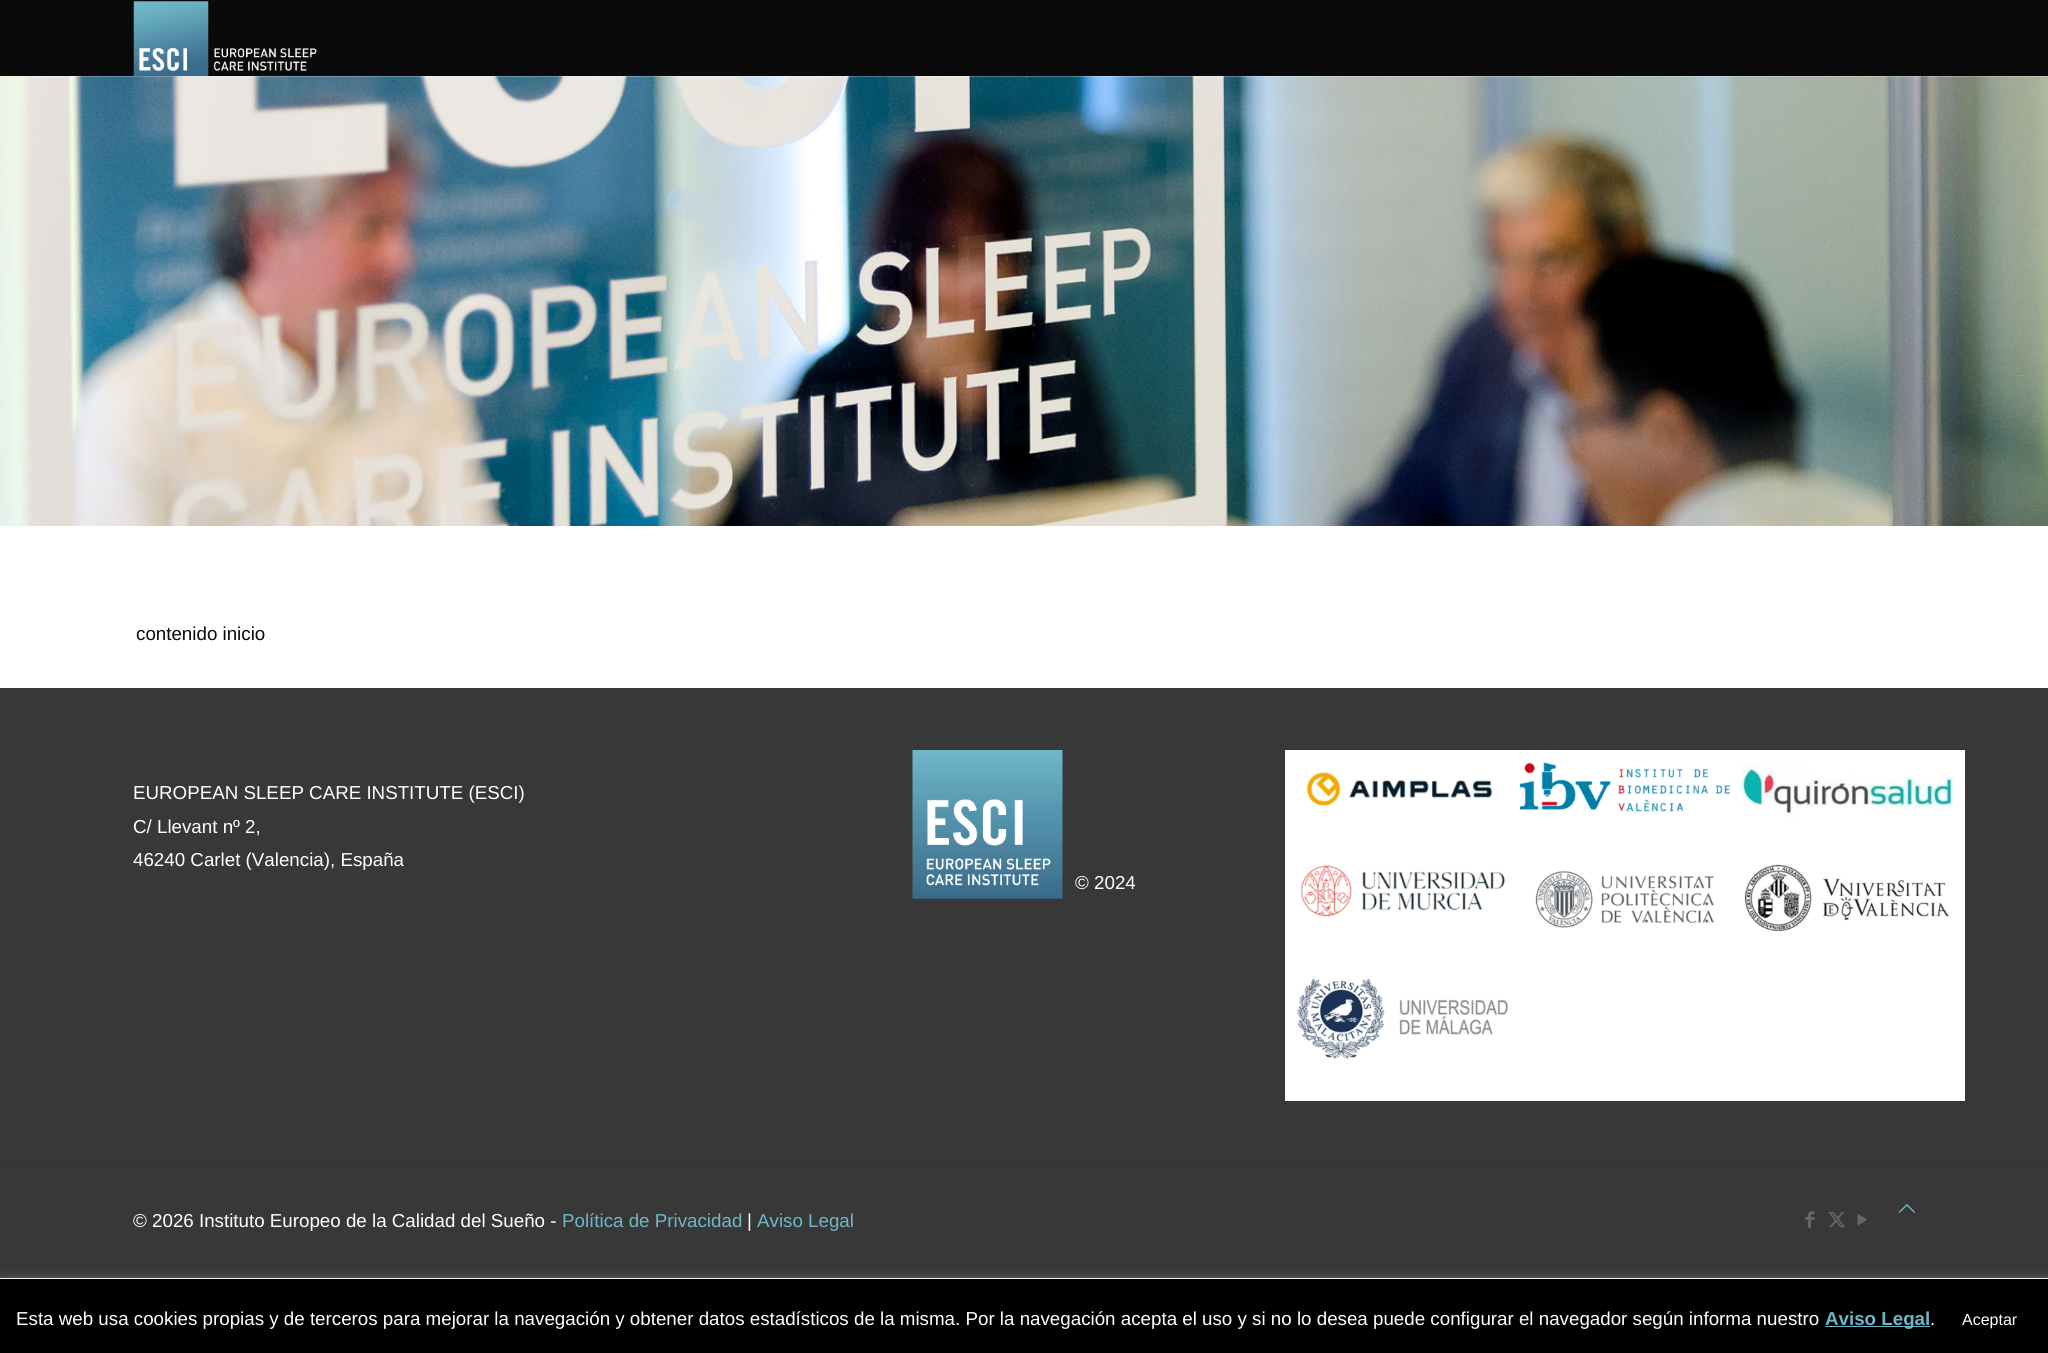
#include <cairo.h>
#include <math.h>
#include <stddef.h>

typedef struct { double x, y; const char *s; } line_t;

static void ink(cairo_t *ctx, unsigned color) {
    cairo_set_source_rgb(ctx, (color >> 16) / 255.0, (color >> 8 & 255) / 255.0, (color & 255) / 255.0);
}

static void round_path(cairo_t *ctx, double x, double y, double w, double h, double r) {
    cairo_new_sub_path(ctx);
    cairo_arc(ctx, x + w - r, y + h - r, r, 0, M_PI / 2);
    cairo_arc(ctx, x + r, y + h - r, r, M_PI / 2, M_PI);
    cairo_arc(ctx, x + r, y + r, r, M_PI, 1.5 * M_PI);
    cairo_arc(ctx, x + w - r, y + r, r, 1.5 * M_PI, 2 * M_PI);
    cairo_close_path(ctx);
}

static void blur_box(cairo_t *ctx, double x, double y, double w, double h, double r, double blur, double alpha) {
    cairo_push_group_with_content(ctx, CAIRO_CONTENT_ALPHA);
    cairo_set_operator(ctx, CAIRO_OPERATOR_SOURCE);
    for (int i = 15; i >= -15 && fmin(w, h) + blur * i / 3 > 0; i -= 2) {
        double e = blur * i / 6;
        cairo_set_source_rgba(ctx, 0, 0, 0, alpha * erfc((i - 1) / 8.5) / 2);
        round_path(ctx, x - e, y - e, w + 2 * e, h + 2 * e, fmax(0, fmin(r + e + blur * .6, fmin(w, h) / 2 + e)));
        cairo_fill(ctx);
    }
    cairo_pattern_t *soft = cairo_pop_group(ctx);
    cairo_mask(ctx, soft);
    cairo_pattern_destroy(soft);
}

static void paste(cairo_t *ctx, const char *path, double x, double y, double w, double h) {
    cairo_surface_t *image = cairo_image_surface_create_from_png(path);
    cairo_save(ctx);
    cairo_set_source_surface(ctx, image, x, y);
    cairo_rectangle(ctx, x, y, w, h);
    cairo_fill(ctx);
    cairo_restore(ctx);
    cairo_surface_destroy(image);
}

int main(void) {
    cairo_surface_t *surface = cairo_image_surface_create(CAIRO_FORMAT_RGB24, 2048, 1353);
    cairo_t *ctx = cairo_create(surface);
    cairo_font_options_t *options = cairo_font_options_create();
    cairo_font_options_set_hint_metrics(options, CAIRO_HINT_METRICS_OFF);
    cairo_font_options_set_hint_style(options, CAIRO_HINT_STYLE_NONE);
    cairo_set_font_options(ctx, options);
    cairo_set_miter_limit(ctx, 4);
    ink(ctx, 0xFFFFFF);
    cairo_paint(ctx);
    ink(ctx, 0x0A0A0A);
    cairo_rectangle(ctx, 0, 0, 2048, 76);
    cairo_fill(ctx);
    paste(ctx, "media/1.png", 133, 1, 184, 76);
    paste(ctx, "media/2.png", 0, 76, 2048, 450);
    cairo_select_font_face(ctx, "Liberation Sans", CAIRO_FONT_SLANT_NORMAL, CAIRO_FONT_WEIGHT_NORMAL);
    cairo_set_font_size(ctx, 18.75);
    cairo_move_to(ctx, 136, 640);
    cairo_show_text(ctx, "contenido inicio");
    ink(ctx, 0x383838);
    cairo_rectangle(ctx, 0, 688, 2048, 590);
    cairo_fill(ctx);
    ink(ctx, 0xFFFFFF);
    {
        static const line_t items[] = {
            {133, 799, "EUROPEAN SLEEP CARE INSTITUTE (ESCI)"},
            {133, 833, "C/ Llevant nº 2,"},
            {133, 866, "46240 Carlet (Valencia), España"},
        };
        for (size_t i = 0; i < sizeof items / sizeof *items; i++) {
            cairo_move_to(ctx, items[i].x, items[i].y);
            cairo_show_text(ctx, items[i].s);
        }
    }
    cairo_rectangle(ctx, 1285, 750, 680, 351);
    cairo_fill(ctx);
    paste(ctx, "media/3.png", 1306, 772, 186, 34);
    paste(ctx, "media/4.png", 1520, 762, 210, 50);
    paste(ctx, "media/5.png", 1742, 763, 211, 55);
    paste(ctx, "media/6.png", 1300, 865, 206, 52);
    paste(ctx, "media/7.png", 1535, 871, 179, 57);
    paste(ctx, "media/8.png", 1744, 864, 206, 68);
    paste(ctx, "media/9.png", 1297, 978, 211, 81);
    paste(ctx, "media/10.png", 912, 750, 151, 149);
    cairo_move_to(ctx, 1075, 889);
    cairo_show_text(ctx, "© 2024");
    ink(ctx, 0x323232);
    cairo_rectangle(ctx, 0, 1164, 2048, 1);
    cairo_fill(ctx);
    paste(ctx, "media/11.png", 1898, 1204, 17, 9);
    ink(ctx, 0xFFFFFF);
    cairo_move_to(ctx, 133, 1227);
    cairo_show_text(ctx, "© 2026 Instituto Europeo de la Calidad del Sueño -");
    ink(ctx, 0x6EB7C8);
    cairo_move_to(ctx, 562, 1227);
    cairo_show_text(ctx, "Política de Privacidad");
    ink(ctx, 0xFFFFFF);
    cairo_move_to(ctx, 747, 1227);
    cairo_show_text(ctx, "|");
    ink(ctx, 0x6EB7C8);
    cairo_move_to(ctx, 757, 1227);
    cairo_show_text(ctx, "Aviso Legal");
    paste(ctx, "media/12.png", 1805, 1211, 10, 18);
    paste(ctx, "media/13.png", 1828, 1212, 18, 16);
    paste(ctx, "media/14.png", 1857, 1214, 10, 12);
    ink(ctx, 0xACABAB);
    blur_box(ctx, 0, 1278, 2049, 75, 0, 6, 0.3);
    ink(ctx, 0x000000);
    cairo_rectangle(ctx, 0, 1279, 2048, 74);
    cairo_fill(ctx);
    ink(ctx, 0xFFFFFF);
    cairo_move_to(ctx, 16, 1325);
    cairo_show_text(ctx, "Esta web usa cookies propias y de terceros para mejorar la navegación y obtener datos estadísticos de la misma. Por la navegación acepta el uso y si no lo desea puede configurar el navegador según informa nuestro");
    ink(ctx, 0x6EB5C6);
    cairo_rectangle(ctx, 1825, 1326, 105, 1);
    cairo_fill(ctx);
    cairo_select_font_face(ctx, "Liberation Sans", CAIRO_FONT_SLANT_NORMAL, CAIRO_FONT_WEIGHT_BOLD);
    ink(ctx, 0x6EB7C8);
    cairo_move_to(ctx, 1825, 1325);
    cairo_show_text(ctx, "Aviso Legal");
    cairo_select_font_face(ctx, "Liberation Sans", CAIRO_FONT_SLANT_NORMAL, CAIRO_FONT_WEIGHT_NORMAL);
    ink(ctx, 0xFFFFFF);
    cairo_move_to(ctx, 1930, 1325);
    cairo_show_text(ctx, ".");
    cairo_set_font_size(ctx, 16);
    cairo_move_to(ctx, 1962, 1325);
    cairo_show_text(ctx, "Aceptar");
    cairo_surface_write_to_png(surface, "image.png");
    cairo_font_options_destroy(options);
    cairo_destroy(ctx);
    cairo_surface_destroy(surface);
    return 0;
}
